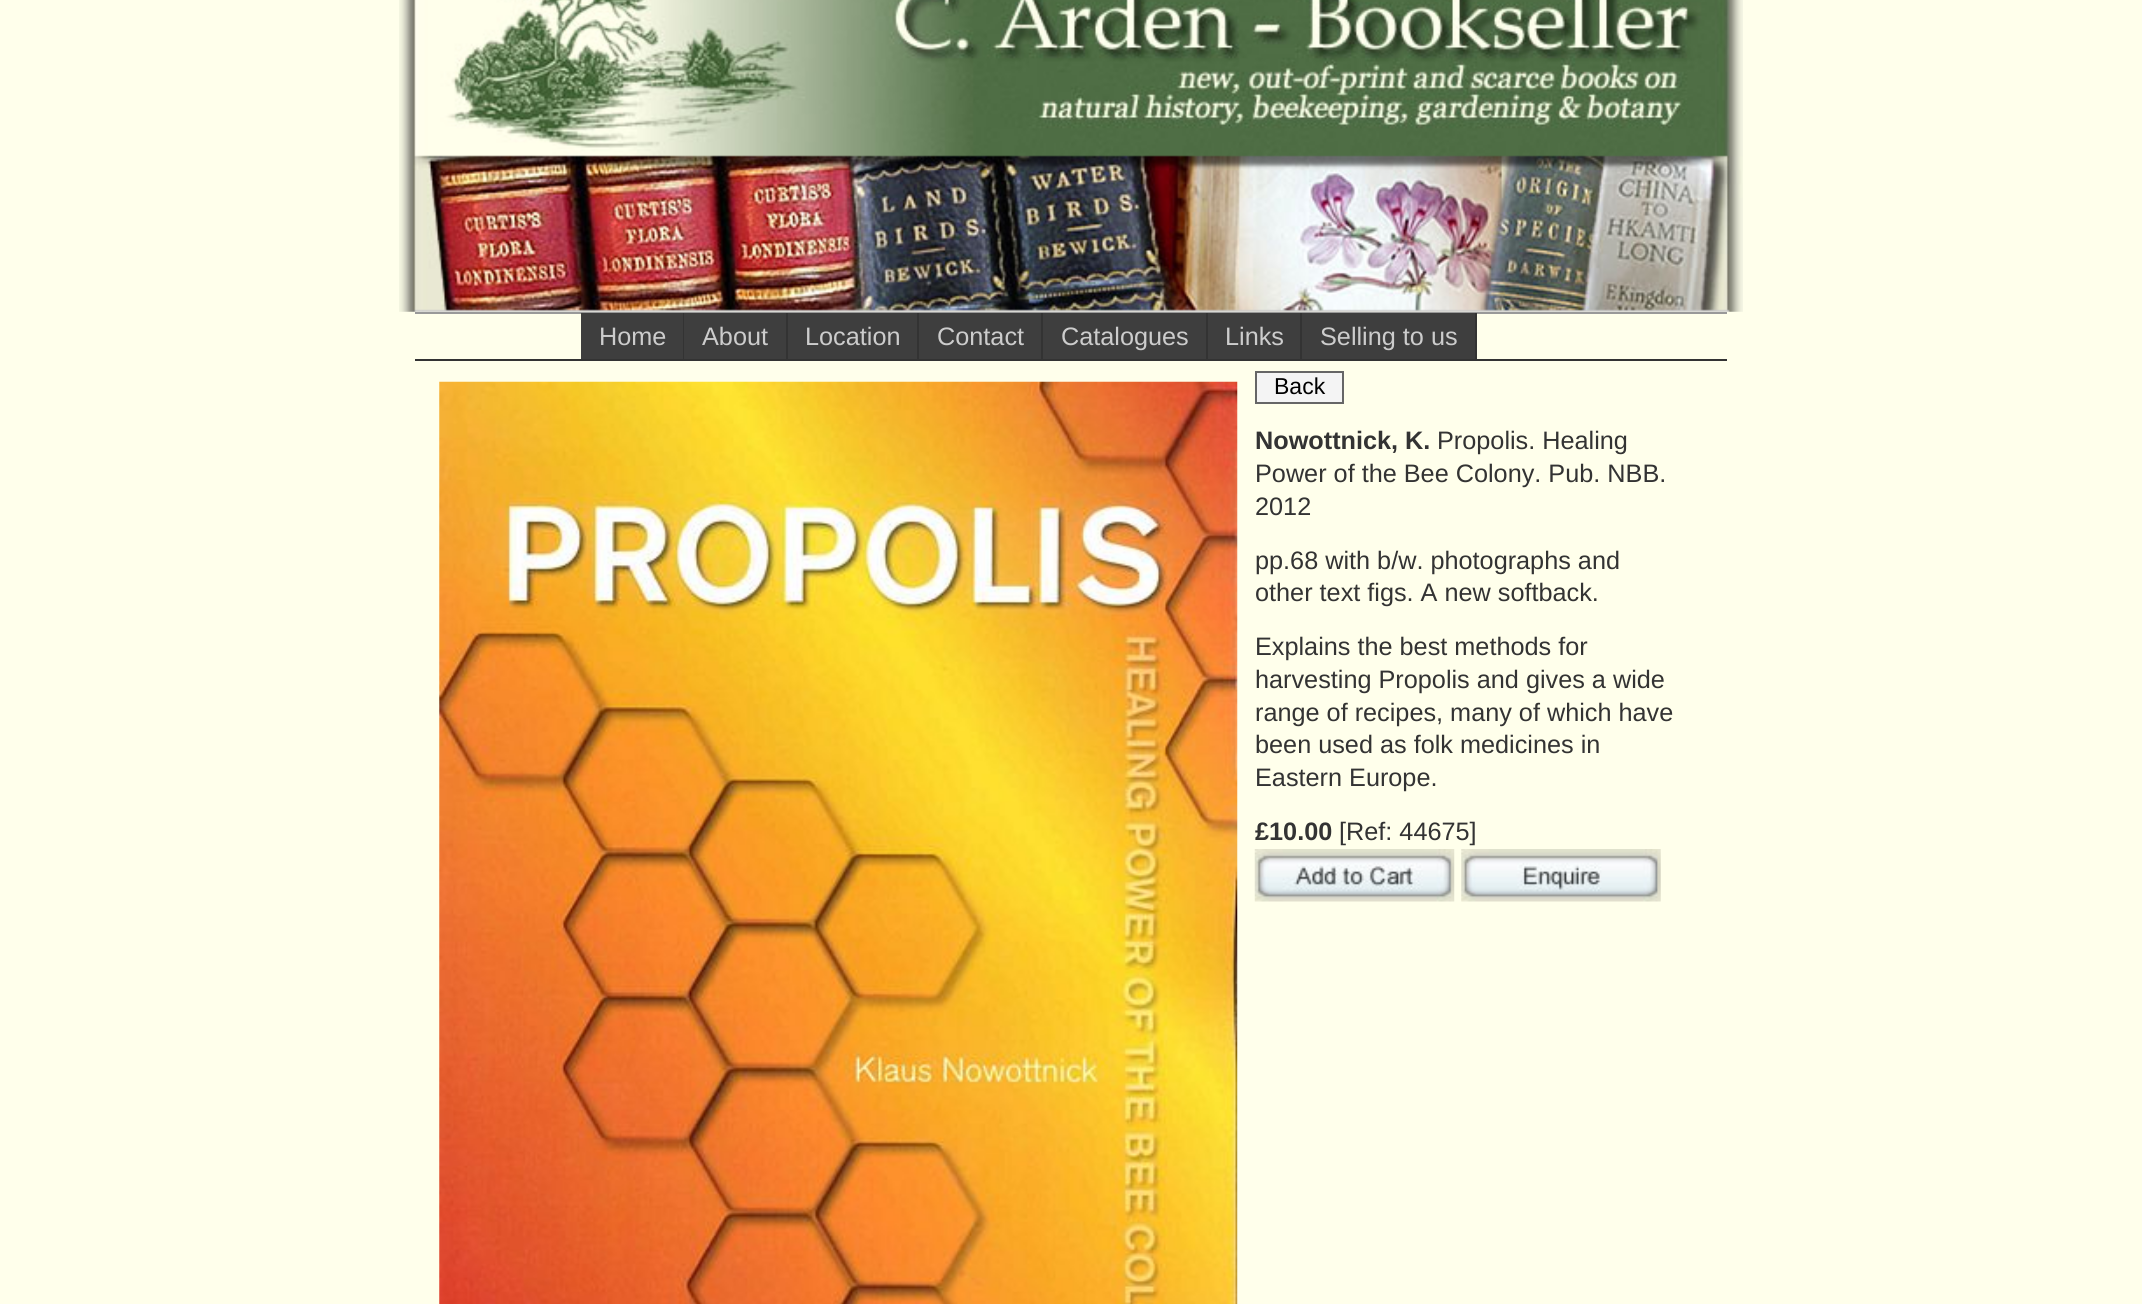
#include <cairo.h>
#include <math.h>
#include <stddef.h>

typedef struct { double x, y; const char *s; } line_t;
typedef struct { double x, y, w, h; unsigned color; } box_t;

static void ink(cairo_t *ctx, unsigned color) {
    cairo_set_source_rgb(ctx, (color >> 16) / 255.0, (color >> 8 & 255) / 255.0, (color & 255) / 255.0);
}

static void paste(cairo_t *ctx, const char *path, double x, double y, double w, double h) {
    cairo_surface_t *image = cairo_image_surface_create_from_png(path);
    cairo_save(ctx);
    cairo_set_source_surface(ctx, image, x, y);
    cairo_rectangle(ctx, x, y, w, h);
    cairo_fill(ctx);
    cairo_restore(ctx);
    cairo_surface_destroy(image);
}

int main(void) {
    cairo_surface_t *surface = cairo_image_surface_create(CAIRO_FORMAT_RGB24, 2142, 1304);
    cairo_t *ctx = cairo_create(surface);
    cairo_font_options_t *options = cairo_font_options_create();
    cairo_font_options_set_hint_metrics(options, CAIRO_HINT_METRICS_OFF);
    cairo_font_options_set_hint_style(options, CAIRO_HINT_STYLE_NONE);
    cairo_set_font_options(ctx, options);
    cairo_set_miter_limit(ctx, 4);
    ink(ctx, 0xFFFFEB);
    cairo_paint(ctx);
    paste(ctx, "media/1.png", 399, 0, 1344, 312);
    {
        static const box_t items[] = {
            {415, 312, 1312, 2, 0x999999},
            {415, 359, 1312, 2, 0x333333},
            {581, 313, 102, 46, 0x3E3E3E},
            {683, 313, 1, 46, 0x333333},
        };
        for (size_t i = 0; i < sizeof items / sizeof *items; i++) {
            ink(ctx, items[i].color);
            cairo_rectangle(ctx, items[i].x, items[i].y, items[i].w, items[i].h);
            cairo_fill(ctx);
        }
    }
    cairo_select_font_face(ctx, "Liberation Sans", CAIRO_FONT_SLANT_NORMAL, CAIRO_FONT_WEIGHT_NORMAL);
    cairo_set_font_size(ctx, 25.25);
    ink(ctx, 0xCCCCCC);
    cairo_move_to(ctx, 599, 345);
    cairo_show_text(ctx, "Home");
    ink(ctx, 0x3E3E3E);
    cairo_rectangle(ctx, 684, 313, 102, 46);
    cairo_fill(ctx);
    ink(ctx, 0x333333);
    cairo_rectangle(ctx, 786, 313, 2, 46);
    cairo_fill(ctx);
    ink(ctx, 0xCCCCCC);
    cairo_move_to(ctx, 702, 345);
    cairo_show_text(ctx, "About");
    ink(ctx, 0x3E3E3E);
    cairo_rectangle(ctx, 788, 313, 129, 46);
    cairo_fill(ctx);
    ink(ctx, 0x333333);
    cairo_rectangle(ctx, 917, 313, 2, 46);
    cairo_fill(ctx);
    ink(ctx, 0xCCCCCC);
    cairo_move_to(ctx, 805, 345);
    cairo_show_text(ctx, "Location");
    ink(ctx, 0x3E3E3E);
    cairo_rectangle(ctx, 919, 313, 122, 46);
    cairo_fill(ctx);
    ink(ctx, 0x333333);
    cairo_rectangle(ctx, 1041, 313, 2, 46);
    cairo_fill(ctx);
    ink(ctx, 0xCCCCCC);
    cairo_move_to(ctx, 937, 345);
    cairo_show_text(ctx, "Contact");
    ink(ctx, 0x3E3E3E);
    cairo_rectangle(ctx, 1043, 313, 163, 46);
    cairo_fill(ctx);
    ink(ctx, 0x333333);
    cairo_rectangle(ctx, 1206, 313, 2, 46);
    cairo_fill(ctx);
    ink(ctx, 0xCCCCCC);
    cairo_move_to(ctx, 1061, 345);
    cairo_show_text(ctx, "Catalogues");
    ink(ctx, 0x3E3E3E);
    cairo_rectangle(ctx, 1208, 313, 92, 46);
    cairo_fill(ctx);
    ink(ctx, 0x333333);
    cairo_rectangle(ctx, 1300, 313, 2, 46);
    cairo_fill(ctx);
    ink(ctx, 0xCCCCCC);
    cairo_move_to(ctx, 1225, 345);
    cairo_show_text(ctx, "Links");
    ink(ctx, 0x3E3E3E);
    cairo_rectangle(ctx, 1302, 313, 173, 46);
    cairo_fill(ctx);
    ink(ctx, 0x333333);
    cairo_rectangle(ctx, 1475, 313, 2, 46);
    cairo_fill(ctx);
    ink(ctx, 0xCCCCCC);
    cairo_move_to(ctx, 1320, 345);
    cairo_show_text(ctx, "Selling to us");
    paste(ctx, "media/2.png", 439, 381, 799, 923);
    ink(ctx, 0xF4F4F4);
    cairo_rectangle(ctx, 1256, 372, 87, 31);
    cairo_fill_preserve(ctx);
    ink(ctx, 0x666666);
    cairo_stroke(ctx);
    cairo_set_font_size(ctx, 23);
    ink(ctx, 0x000000);
    cairo_move_to(ctx, 1274, 394);
    cairo_show_text(ctx, "Back");
    cairo_select_font_face(ctx, "Liberation Sans", CAIRO_FONT_SLANT_NORMAL, CAIRO_FONT_WEIGHT_BOLD);
    cairo_set_font_size(ctx, 25.25);
    ink(ctx, 0x333333);
    cairo_move_to(ctx, 1255, 449);
    cairo_show_text(ctx, "Nowottnick, K.");
    cairo_select_font_face(ctx, "Liberation Sans", CAIRO_FONT_SLANT_NORMAL, CAIRO_FONT_WEIGHT_NORMAL);
    {
        static const line_t items[] = {
            {1437, 449, "Propolis. Healing"},
            {1255, 482, "Power of the Bee Colony. Pub. NBB."},
            {1255, 515, "2012"},
            {1255, 569, "pp.68 with b/w. photographs and"},
            {1255, 601, "other text figs. A new softback."},
            {1255, 655, "Explains the best methods for"},
            {1255, 688, "harvesting Propolis and gives a wide"},
            {1255, 721, "range of recipes, many of which have"},
            {1255, 753, "been used as folk medicines in"},
            {1255, 786, "Eastern Europe."},
        };
        for (size_t i = 0; i < sizeof items / sizeof *items; i++) {
            cairo_move_to(ctx, items[i].x, items[i].y);
            cairo_show_text(ctx, items[i].s);
        }
    }
    cairo_select_font_face(ctx, "Liberation Sans", CAIRO_FONT_SLANT_NORMAL, CAIRO_FONT_WEIGHT_BOLD);
    cairo_move_to(ctx, 1255, 840);
    cairo_show_text(ctx, "£10.00");
    cairo_select_font_face(ctx, "Liberation Sans", CAIRO_FONT_SLANT_NORMAL, CAIRO_FONT_WEIGHT_NORMAL);
    cairo_move_to(ctx, 1339, 840);
    cairo_show_text(ctx, "[Ref: 44675]");
    paste(ctx, "media/3.png", 1254, 849, 201, 53);
    paste(ctx, "media/4.png", 1461, 849, 200, 53);
    cairo_surface_write_to_png(surface, "image.png");
    cairo_font_options_destroy(options);
    cairo_destroy(ctx);
    cairo_surface_destroy(surface);
    return 0;
}
